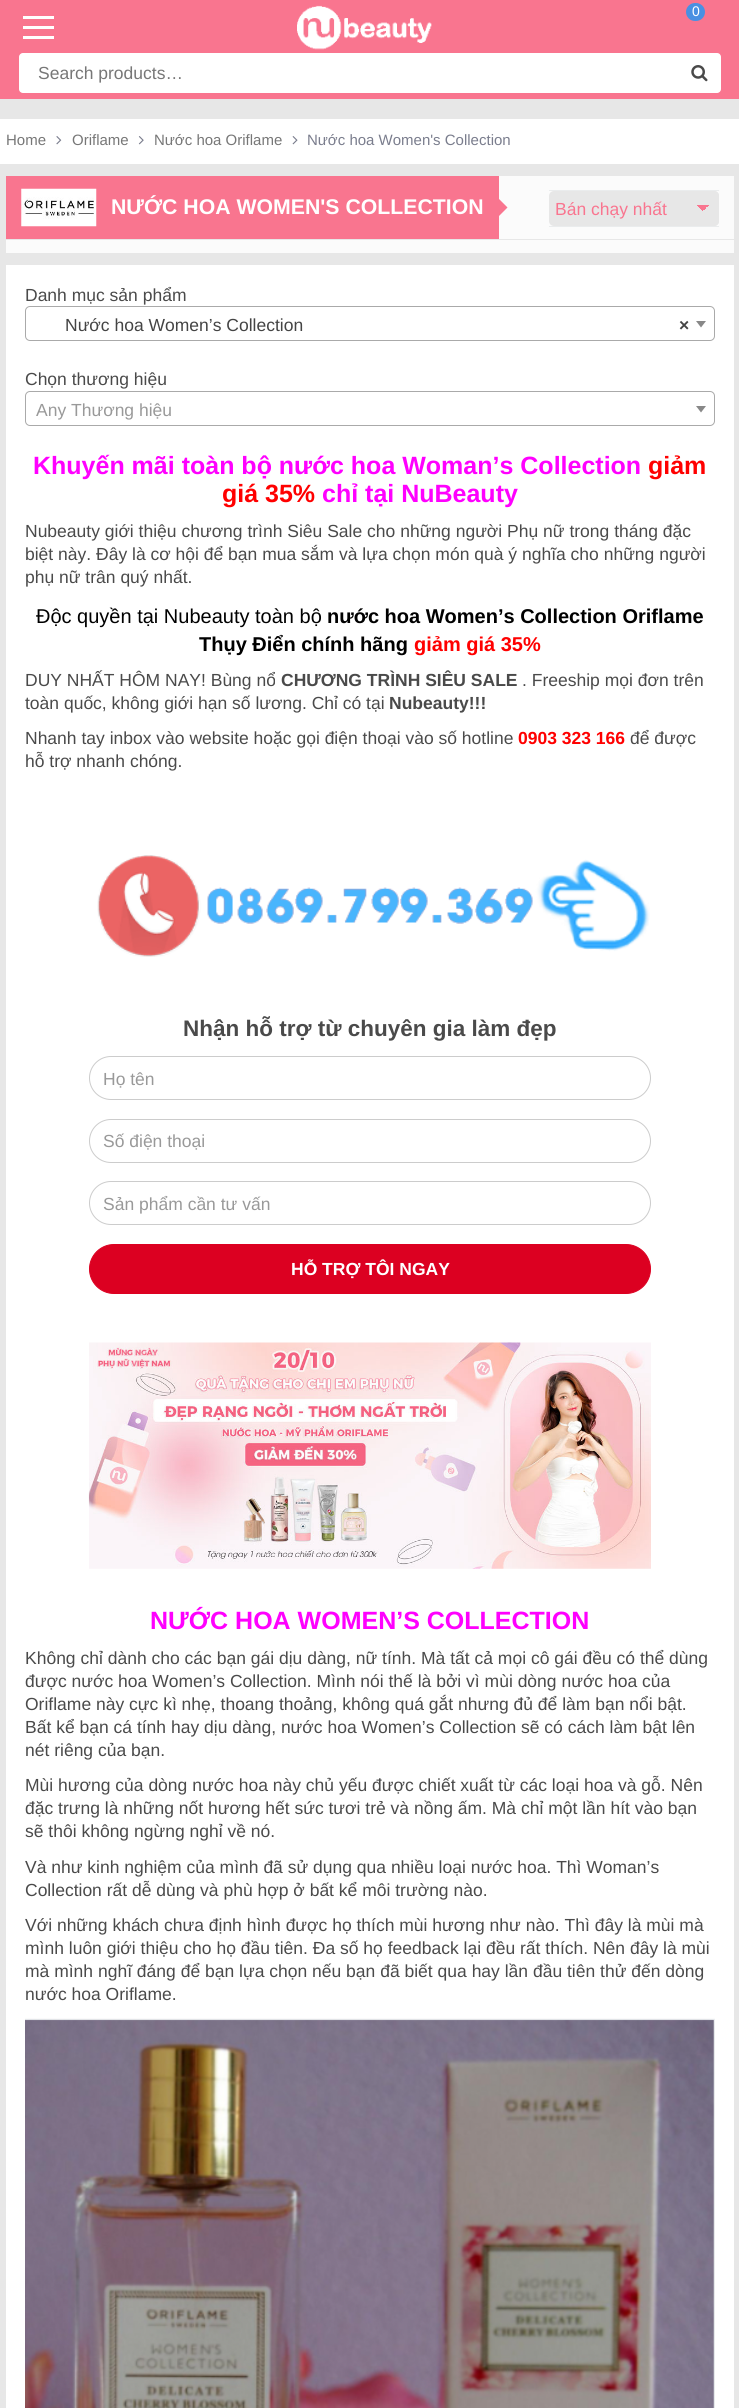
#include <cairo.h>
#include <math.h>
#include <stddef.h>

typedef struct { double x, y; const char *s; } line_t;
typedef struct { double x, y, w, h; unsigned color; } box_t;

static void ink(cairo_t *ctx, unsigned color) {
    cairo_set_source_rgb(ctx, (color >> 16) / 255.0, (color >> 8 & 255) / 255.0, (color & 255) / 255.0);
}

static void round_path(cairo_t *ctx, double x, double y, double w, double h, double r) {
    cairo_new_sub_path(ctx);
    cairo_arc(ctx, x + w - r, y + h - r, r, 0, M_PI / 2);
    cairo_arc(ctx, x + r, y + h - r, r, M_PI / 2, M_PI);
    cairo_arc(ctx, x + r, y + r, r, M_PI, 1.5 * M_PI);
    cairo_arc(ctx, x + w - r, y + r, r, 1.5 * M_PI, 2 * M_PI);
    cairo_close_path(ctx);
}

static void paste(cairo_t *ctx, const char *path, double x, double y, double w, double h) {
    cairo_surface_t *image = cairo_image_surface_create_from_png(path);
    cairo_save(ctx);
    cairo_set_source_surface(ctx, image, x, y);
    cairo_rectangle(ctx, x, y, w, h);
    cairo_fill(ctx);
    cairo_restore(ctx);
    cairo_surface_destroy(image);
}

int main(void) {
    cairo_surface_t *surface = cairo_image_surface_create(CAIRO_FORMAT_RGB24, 739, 2408);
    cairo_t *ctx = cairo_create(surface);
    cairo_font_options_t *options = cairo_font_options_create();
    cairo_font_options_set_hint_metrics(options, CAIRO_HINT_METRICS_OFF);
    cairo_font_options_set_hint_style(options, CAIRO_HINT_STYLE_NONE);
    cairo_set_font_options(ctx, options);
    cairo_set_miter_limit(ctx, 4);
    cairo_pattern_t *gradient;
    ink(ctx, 0xE7E7E7);
    cairo_paint(ctx);
    ink(ctx, 0xF9758F);
    cairo_rectangle(ctx, 0, 0, 739, 99);
    cairo_fill(ctx);
    paste(ctx, "media/1.png", 297, 5, 135, 45);
    ink(ctx, 0x4A90E2);
    round_path(ctx, 686, 3, 19, 18, 9);
    cairo_fill(ctx);
    cairo_select_font_face(ctx, "Liberation Sans", CAIRO_FONT_SLANT_NORMAL, CAIRO_FONT_WEIGHT_NORMAL);
    cairo_set_font_size(ctx, 14);
    ink(ctx, 0xFFFFFF);
    cairo_move_to(ctx, 692, 16);
    cairo_show_text(ctx, "0");
    {
        static const box_t items[] = {
            {23, 16, 31, 3, 0xFFFFFF},
            {23, 26, 31, 3, 0xFFFFFF},
            {23, 36, 31, 3, 0xFFFFFF},
        };
        for (size_t i = 0; i < sizeof items / sizeof *items; i++) {
            ink(ctx, items[i].color);
            cairo_rectangle(ctx, items[i].x, items[i].y, items[i].w, items[i].h);
            cairo_fill(ctx);
        }
    }
    round_path(ctx, 19, 53, 702, 40, 4);
    cairo_fill(ctx);
    cairo_set_font_size(ctx, 17.5);
    ink(ctx, 0x777777);
    cairo_move_to(ctx, 38, 79);
    cairo_show_text(ctx, "Search products…");
    paste(ctx, "media/2.png", 691, 65, 17, 17);
    ink(ctx, 0xFFFFFF);
    cairo_rectangle(ctx, 0, 119, 739, 45);
    cairo_fill(ctx);
    cairo_set_font_size(ctx, 15);
    ink(ctx, 0x777777);
    cairo_move_to(ctx, 6, 145);
    cairo_show_text(ctx, "Home");
    paste(ctx, "media/3.png", 56, 136, 6, 9);
    cairo_move_to(ctx, 72, 145);
    cairo_show_text(ctx, "Oriflame");
    paste(ctx, "media/4.png", 138, 136, 6, 9);
    cairo_move_to(ctx, 154, 145);
    cairo_show_text(ctx, "Nước hoa Oriflame");
    paste(ctx, "media/5.png", 292, 136, 6, 9);
    ink(ctx, 0x7A7D8D);
    cairo_move_to(ctx, 307, 145);
    cairo_show_text(ctx, "Nước hoa Women's Collection");
    ink(ctx, 0xFBFBFB);
    cairo_rectangle(ctx, 6, 176, 728, 77);
    cairo_fill(ctx);
    ink(ctx, 0xF9758F);
    cairo_rectangle(ctx, 6, 176, 493, 63);
    cairo_fill(ctx);
    paste(ctx, "media/6.png", 21, 188, 76, 39);
    cairo_select_font_face(ctx, "Liberation Sans", CAIRO_FONT_SLANT_NORMAL, CAIRO_FONT_WEIGHT_BOLD);
    cairo_set_font_size(ctx, 21.25);
    ink(ctx, 0xFFFFFF);
    cairo_move_to(ctx, 111, 214);
    cairo_show_text(ctx, "NƯỚC HOA WOMEN'S COLLECTION");
    ink(ctx, 0xF9758F);
    cairo_new_path(ctx);
    cairo_move_to(ctx, 495, 220);
    cairo_line_to(ctx, 495, 195);
    cairo_line_to(ctx, 507.5, 207.5);
    cairo_close_path(ctx);
    cairo_fill(ctx);
    ink(ctx, 0xEAECED);
    cairo_rectangle(ctx, 549, 190, 170, 1);
    cairo_fill(ctx);
    cairo_rectangle(ctx, 549, 226, 170, 1);
    cairo_fill(ctx);
    ink(ctx, 0xE7E7E7);
    round_path(ctx, 549, 191, 170, 35, 5);
    cairo_fill(ctx);
    cairo_new_path(ctx);
    cairo_move_to(ctx, 675, 191);
    cairo_line_to(ctx, 714, 191);
    cairo_curve_to(ctx, 717, 191, 719, 193, 719, 196);
    cairo_line_to(ctx, 719, 221);
    cairo_curve_to(ctx, 719, 224, 717, 226, 714, 226);
    cairo_line_to(ctx, 675, 226);
    cairo_close_path(ctx);
    cairo_fill(ctx);
    gradient = cairo_pattern_create_linear(703, 205, 709, 211);
    cairo_pattern_add_color_stop_rgba(gradient, 0.5, 0.976, 0.459, 0.561, 1);
    cairo_pattern_add_color_stop_rgba(gradient, 0.5, 0.906, 0.906, 0.906, 1);
    cairo_set_source(ctx, gradient);
    cairo_pattern_destroy(gradient);
    cairo_rectangle(ctx, 703, 205, 6, 5);
    cairo_fill(ctx);
    gradient = cairo_pattern_create_linear(696, 211, 703, 205);
    cairo_pattern_add_color_stop_rgba(gradient, 0.5, 0.906, 0.906, 0.906, 1);
    cairo_pattern_add_color_stop_rgba(gradient, 0.5, 0.976, 0.459, 0.561, 1);
    cairo_set_source(ctx, gradient);
    cairo_pattern_destroy(gradient);
    cairo_rectangle(ctx, 696, 205, 7, 6);
    cairo_fill(ctx);
    cairo_select_font_face(ctx, "Liberation Sans", CAIRO_FONT_SLANT_NORMAL, CAIRO_FONT_WEIGHT_NORMAL);
    cairo_set_font_size(ctx, 17.5);
    ink(ctx, 0xF9758F);
    cairo_move_to(ctx, 555, 215);
    cairo_show_text(ctx, "Bán chạy nhất");
    ink(ctx, 0xE7E7E7);
    cairo_rectangle(ctx, 6, 239, 728, 1);
    cairo_fill(ctx);
    ink(ctx, 0xFFFFFF);
    cairo_rectangle(ctx, 6, 265, 728, 2143);
    cairo_fill(ctx);
    ink(ctx, 0x4A4A4A);
    cairo_move_to(ctx, 25, 301);
    cairo_show_text(ctx, "Danh mục sản phẩm");
    round_path(ctx, 25.5, 306.5, 689, 34, 4.5);
    ink(ctx, 0xAAAAAA);
    cairo_set_line_width(ctx, 1);
    cairo_stroke(ctx);
    ink(ctx, 0x444444);
    cairo_move_to(ctx, 65, 331);
    cairo_show_text(ctx, "Nước hoa Women’s Collection");
    cairo_select_font_face(ctx, "Liberation Sans", CAIRO_FONT_SLANT_NORMAL, CAIRO_FONT_WEIGHT_BOLD);
    cairo_move_to(ctx, 679, 331);
    cairo_show_text(ctx, "×");
    ink(ctx, 0x888888);
    cairo_new_path(ctx);
    cairo_move_to(ctx, 696, 321);
    cairo_line_to(ctx, 706, 321);
    cairo_line_to(ctx, 701, 327.5);
    cairo_close_path(ctx);
    cairo_fill(ctx);
    cairo_select_font_face(ctx, "Liberation Sans", CAIRO_FONT_SLANT_NORMAL, CAIRO_FONT_WEIGHT_NORMAL);
    ink(ctx, 0x4A4A4A);
    cairo_move_to(ctx, 25, 385);
    cairo_show_text(ctx, "Chọn thương hiệu");
    round_path(ctx, 25.5, 391.5, 689, 34, 4.5);
    ink(ctx, 0xAAAAAA);
    cairo_stroke(ctx);
    ink(ctx, 0x999999);
    cairo_move_to(ctx, 36, 416);
    cairo_show_text(ctx, "Any Thương hiệu");
    ink(ctx, 0x888888);
    cairo_new_path(ctx);
    cairo_move_to(ctx, 696, 406);
    cairo_line_to(ctx, 706, 406);
    cairo_line_to(ctx, 701, 412.5);
    cairo_close_path(ctx);
    cairo_fill(ctx);
    cairo_select_font_face(ctx, "Liberation Sans", CAIRO_FONT_SLANT_NORMAL, CAIRO_FONT_WEIGHT_BOLD);
    cairo_set_font_size(ctx, 25);
    ink(ctx, 0xFF00FF);
    cairo_move_to(ctx, 33, 474);
    cairo_show_text(ctx, "Khuyến mãi toàn bộ nước hoa Woman’s Collection");
    ink(ctx, 0xFF0000);
    cairo_move_to(ctx, 648, 474);
    cairo_show_text(ctx, "giảm");
    cairo_move_to(ctx, 222, 502);
    cairo_show_text(ctx, "giá 35%");
    ink(ctx, 0xFF00FF);
    cairo_move_to(ctx, 322, 502);
    cairo_show_text(ctx, "chỉ tại NuBeauty");
    cairo_select_font_face(ctx, "Liberation Sans", CAIRO_FONT_SLANT_NORMAL, CAIRO_FONT_WEIGHT_NORMAL);
    cairo_set_font_size(ctx, 17.5);
    ink(ctx, 0x4A4A4A);
    {
        static const line_t items[] = {
            {25, 537, "Nubeauty giới thiệu chương trình Siêu Sale cho những người Phụ nữ trong tháng đặc"},
            {25, 560, "biệt này. Đây là cơ hội để bạn mua sắm và lựa chọn món quà ý nghĩa cho những người"},
            {25, 583, "phụ nữ trân quý nhất."},
        };
        for (size_t i = 0; i < sizeof items / sizeof *items; i++) {
            cairo_move_to(ctx, items[i].x, items[i].y);
            cairo_show_text(ctx, items[i].s);
        }
    }
    cairo_set_font_size(ctx, 20);
    ink(ctx, 0x000000);
    cairo_move_to(ctx, 36, 623);
    cairo_show_text(ctx, "Độc quyền tại Nubeauty toàn bộ");
    cairo_select_font_face(ctx, "Liberation Sans", CAIRO_FONT_SLANT_NORMAL, CAIRO_FONT_WEIGHT_BOLD);
    cairo_move_to(ctx, 327, 623);
    cairo_show_text(ctx, "nước hoa Women’s Collection Oriflame");
    cairo_move_to(ctx, 199, 651);
    cairo_show_text(ctx, "Thụy Điển chính hãng");
    ink(ctx, 0xFF0000);
    cairo_move_to(ctx, 414, 651);
    cairo_show_text(ctx, "giảm giá 35%");
    cairo_select_font_face(ctx, "Liberation Sans", CAIRO_FONT_SLANT_NORMAL, CAIRO_FONT_WEIGHT_NORMAL);
    cairo_set_font_size(ctx, 17.5);
    ink(ctx, 0x4A4A4A);
    cairo_move_to(ctx, 25, 686);
    cairo_show_text(ctx, "DUY NHẤT HÔM NAY! Bùng nổ");
    cairo_select_font_face(ctx, "Liberation Sans", CAIRO_FONT_SLANT_NORMAL, CAIRO_FONT_WEIGHT_BOLD);
    cairo_move_to(ctx, 281, 686);
    cairo_show_text(ctx, "CHƯƠNG TRÌNH SIÊU SALE");
    cairo_select_font_face(ctx, "Liberation Sans", CAIRO_FONT_SLANT_NORMAL, CAIRO_FONT_WEIGHT_NORMAL);
    cairo_move_to(ctx, 522, 686);
    cairo_show_text(ctx, ". Freeship mọi đơn trên");
    cairo_move_to(ctx, 25, 709);
    cairo_show_text(ctx, "toàn quốc, không giới hạn số lương. Chỉ có tại");
    cairo_select_font_face(ctx, "Liberation Sans", CAIRO_FONT_SLANT_NORMAL, CAIRO_FONT_WEIGHT_BOLD);
    cairo_move_to(ctx, 389, 709);
    cairo_show_text(ctx, "Nubeauty!!!");
    cairo_select_font_face(ctx, "Liberation Sans", CAIRO_FONT_SLANT_NORMAL, CAIRO_FONT_WEIGHT_NORMAL);
    cairo_move_to(ctx, 25, 744);
    cairo_show_text(ctx, "Nhanh tay inbox vào website hoặc gọi điện thoại vào số hotline");
    cairo_select_font_face(ctx, "Liberation Sans", CAIRO_FONT_SLANT_NORMAL, CAIRO_FONT_WEIGHT_BOLD);
    ink(ctx, 0xFF0000);
    cairo_move_to(ctx, 518, 744);
    cairo_show_text(ctx, "0903 323 166");
    cairo_select_font_face(ctx, "Liberation Sans", CAIRO_FONT_SLANT_NORMAL, CAIRO_FONT_WEIGHT_NORMAL);
    ink(ctx, 0x4A4A4A);
    cairo_move_to(ctx, 630, 744);
    cairo_show_text(ctx, "để được");
    cairo_move_to(ctx, 25, 767);
    cairo_show_text(ctx, "hỗ trợ nhanh chóng.");
    paste(ctx, "media/7.png", 97, 855, 553, 102);
    cairo_select_font_face(ctx, "Liberation Sans", CAIRO_FONT_SLANT_NORMAL, CAIRO_FONT_WEIGHT_BOLD);
    cairo_set_font_size(ctx, 22.5);
    cairo_move_to(ctx, 183, 1036);
    cairo_show_text(ctx, "Nhận hỗ trợ từ chuyên gia làm đẹp");
    round_path(ctx, 89.5, 1056.5, 561, 43, 21.5);
    ink(ctx, 0xCCCCCC);
    cairo_stroke(ctx);
    cairo_select_font_face(ctx, "Liberation Sans", CAIRO_FONT_SLANT_NORMAL, CAIRO_FONT_WEIGHT_NORMAL);
    cairo_set_font_size(ctx, 17.5);
    ink(ctx, 0x999999);
    cairo_move_to(ctx, 103, 1085);
    cairo_show_text(ctx, "Họ tên");
    round_path(ctx, 89.5, 1119.5, 561, 43, 21.5);
    ink(ctx, 0xCCCCCC);
    cairo_stroke(ctx);
    ink(ctx, 0x999999);
    cairo_move_to(ctx, 103, 1147);
    cairo_show_text(ctx, "Số điện thoại");
    round_path(ctx, 89.5, 1181.5, 561, 43, 21.5);
    ink(ctx, 0xCCCCCC);
    cairo_stroke(ctx);
    ink(ctx, 0x999999);
    cairo_move_to(ctx, 103, 1210);
    cairo_show_text(ctx, "Sản phẩm cần tư vấn");
    ink(ctx, 0xDC0021);
    round_path(ctx, 89.5, 1244.5, 561, 49, 24.5);
    cairo_fill_preserve(ctx);
    cairo_stroke(ctx);
    cairo_select_font_face(ctx, "Liberation Sans", CAIRO_FONT_SLANT_NORMAL, CAIRO_FONT_WEIGHT_BOLD);
    ink(ctx, 0xFFFFFF);
    cairo_move_to(ctx, 291, 1275);
    cairo_show_text(ctx, "HỖ TRỢ TÔI NGAY");
    paste(ctx, "media/8.png", 88, 1342, 563, 227);
    cairo_set_font_size(ctx, 25);
    ink(ctx, 0xFF00FF);
    cairo_move_to(ctx, 150, 1629);
    cairo_show_text(ctx, "NƯỚC HOA WOMEN’S COLLECTION");
    cairo_select_font_face(ctx, "Liberation Sans", CAIRO_FONT_SLANT_NORMAL, CAIRO_FONT_WEIGHT_NORMAL);
    cairo_set_font_size(ctx, 17.5);
    ink(ctx, 0x4A4A4A);
    {
        static const line_t items[] = {
            {25, 1664, "Không chỉ dành cho các bạn gái dịu dàng, nữ tính. Mà tất cả mọi cô gái đều có thể dùng"},
            {25, 1687, "được nước hoa Women’s Collection. Mình nói thế là bởi vì mùi dòng nước hoa của"},
            {25, 1710, "Oriflame này cực kì nhẹ, thoang thoảng, không quá gắt nhưng đủ để làm bạn nổi bật."},
            {25, 1733, "Bất kể bạn cá tính hay dịu dàng, nước hoa Women’s Collection sẽ có cách làm bật lên"},
            {25, 1756, "nét riêng của bạn."},
            {25, 1791, "Mùi hương của dòng nước hoa này chủ yếu được chiết xuất từ các loại hoa và gỗ. Nên"},
            {25, 1814, "đặc trưng là những nốt hương hết sức tươi trẻ và nồng ấm. Mà chỉ một lần hít vào bạn"},
            {25, 1837, "sẽ thôi không ngừng nghỉ về nó."},
            {25, 1873, "Và như kinh nghiệm của mình đã sử dụng qua nhiều loại nước hoa. Thì Woman’s"},
            {25, 1896, "Collection rất dễ dùng và phù hợp ở bất kể môi trường nào."},
            {25, 1931, "Với những khách chưa định hình được họ thích mùi hương như nào. Thì đây là mùi mà"},
            {25, 1954, "mình luôn giới thiệu cho họ đầu tiên. Đa số họ feedback lại đều rất thích. Nên đây là mùi"},
            {25, 1977, "mà mình nghĩ đáng để bạn lựa chọn nếu bạn đã biết qua hay lần đầu tiên thử đến dòng"},
            {25, 2000, "nước hoa Oriflame."},
        };
        for (size_t i = 0; i < sizeof items / sizeof *items; i++) {
            cairo_move_to(ctx, items[i].x, items[i].y);
            cairo_show_text(ctx, items[i].s);
        }
    }
    paste(ctx, "media/9.png", 25, 2018, 690, 390);
    cairo_surface_write_to_png(surface, "image.png");
    cairo_font_options_destroy(options);
    cairo_destroy(ctx);
    cairo_surface_destroy(surface);
    return 0;
}
